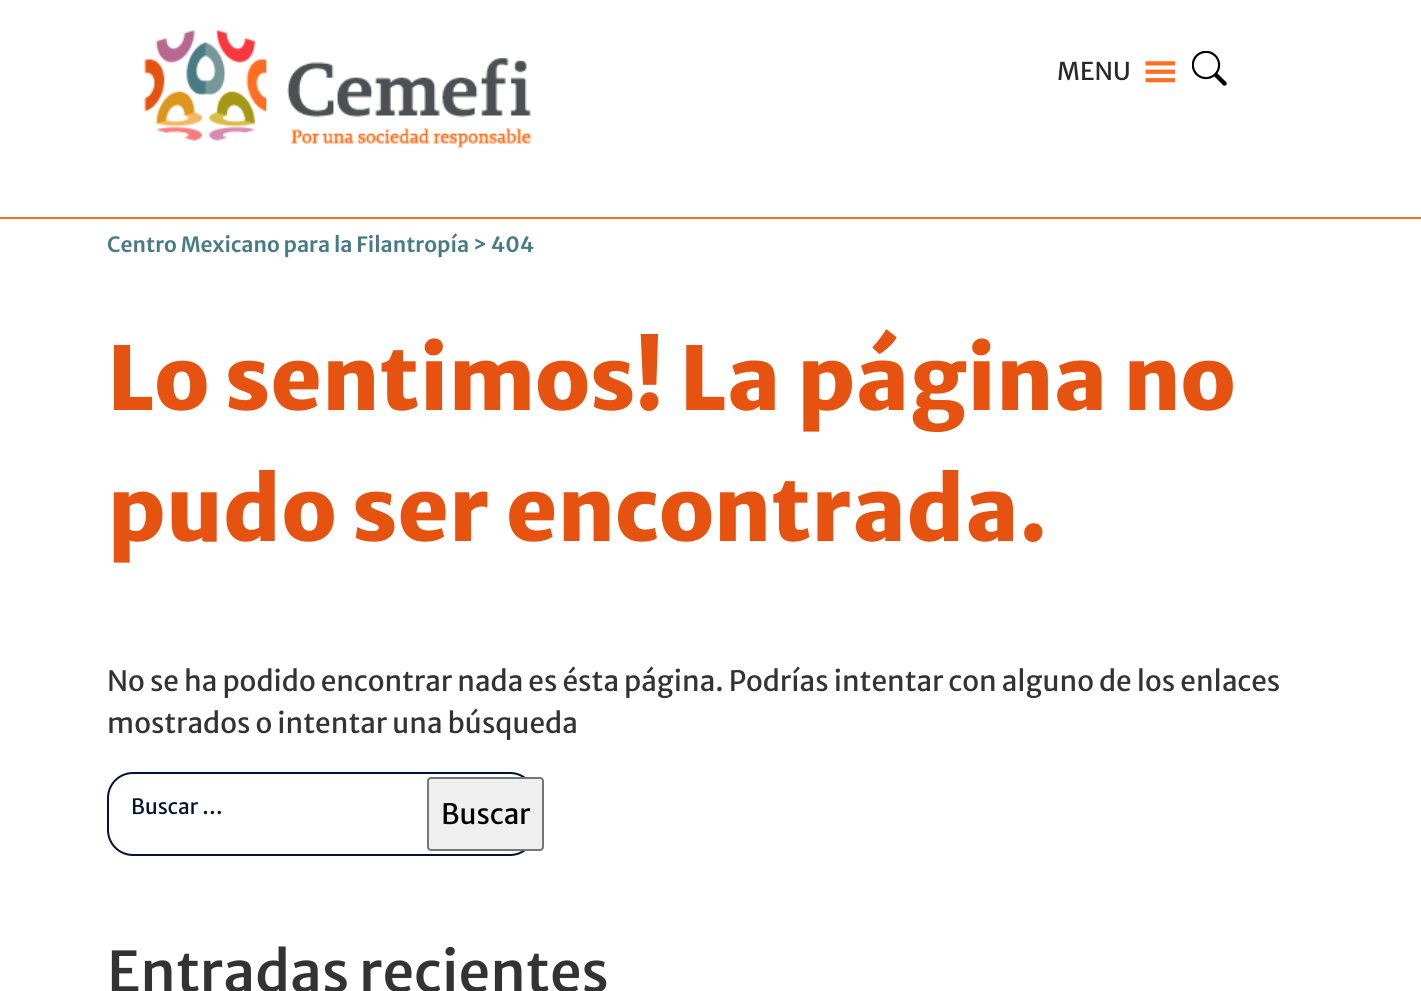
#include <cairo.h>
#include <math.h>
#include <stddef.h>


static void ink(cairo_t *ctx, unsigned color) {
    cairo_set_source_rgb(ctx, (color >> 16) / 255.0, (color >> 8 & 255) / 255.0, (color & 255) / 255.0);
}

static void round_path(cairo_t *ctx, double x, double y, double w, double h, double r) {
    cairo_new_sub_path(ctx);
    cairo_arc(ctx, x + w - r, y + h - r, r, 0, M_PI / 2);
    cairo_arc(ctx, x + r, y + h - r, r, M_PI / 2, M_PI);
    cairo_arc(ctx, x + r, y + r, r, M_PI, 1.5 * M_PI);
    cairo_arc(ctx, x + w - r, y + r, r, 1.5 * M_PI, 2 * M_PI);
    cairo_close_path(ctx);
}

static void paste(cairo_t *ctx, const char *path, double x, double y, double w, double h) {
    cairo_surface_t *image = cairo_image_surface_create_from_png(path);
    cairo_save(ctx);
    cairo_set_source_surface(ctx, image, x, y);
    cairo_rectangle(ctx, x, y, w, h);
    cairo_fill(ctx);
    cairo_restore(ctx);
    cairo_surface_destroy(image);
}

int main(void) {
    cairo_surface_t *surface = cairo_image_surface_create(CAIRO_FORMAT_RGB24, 1421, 991);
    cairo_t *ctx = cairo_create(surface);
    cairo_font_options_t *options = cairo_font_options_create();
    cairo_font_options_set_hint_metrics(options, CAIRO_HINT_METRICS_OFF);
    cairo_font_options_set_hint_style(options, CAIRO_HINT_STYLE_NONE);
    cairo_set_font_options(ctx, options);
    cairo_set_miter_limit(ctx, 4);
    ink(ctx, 0xFFFFFF);
    cairo_paint(ctx);
    ink(ctx, 0xFF6D22);
    cairo_rectangle(ctx, 0, 217, 1421, 2);
    cairo_fill(ctx);
    paste(ctx, "media/1.png", 144, 29, 387, 119);
    cairo_select_font_face(ctx, "Merriweather Sans", CAIRO_FONT_SLANT_NORMAL, CAIRO_FONT_WEIGHT_NORMAL);
    cairo_set_font_size(ctx, 24.5);
    ink(ctx, 0x292828);
    cairo_move_to(ctx, 1057, 80);
    cairo_show_text(ctx, "MENU");
    paste(ctx, "media/2.png", 1145, 61, 30, 22);
    paste(ctx, "media/3.png", 1192, 51, 35, 35);
    cairo_select_font_face(ctx, "Merriweather Sans SemiBold", CAIRO_FONT_SLANT_NORMAL, CAIRO_FONT_WEIGHT_NORMAL);
    cairo_set_font_size(ctx, 21);
    ink(ctx, 0x497B86);
    cairo_move_to(ctx, 107, 252);
    cairo_show_text(ctx, "Centro Mexicano para la Filantropía > 404");
    cairo_select_font_face(ctx, "Merriweather Sans ExtraBold", CAIRO_FONT_SLANT_NORMAL, CAIRO_FONT_WEIGHT_NORMAL);
    cairo_set_font_size(ctx, 87.5);
    ink(ctx, 0xE65310);
    cairo_move_to(ctx, 107, 410);
    cairo_show_text(ctx, "Lo sentimos! La página no");
    cairo_move_to(ctx, 107, 541);
    cairo_show_text(ctx, "pudo ser encontrada.");
    cairo_select_font_face(ctx, "Merriweather Sans", CAIRO_FONT_SLANT_NORMAL, CAIRO_FONT_WEIGHT_NORMAL);
    cairo_set_font_size(ctx, 28);
    ink(ctx, 0x333333);
    cairo_move_to(ctx, 107, 691);
    cairo_show_text(ctx, "No se ha podido encontrar nada es ésta página. Podrías intentar con alguno de los enlaces");
    cairo_move_to(ctx, 107, 733);
    cairo_show_text(ctx, "mostrados o intentar una búsqueda");
    round_path(ctx, 108, 773, 427, 82, 25);
    ink(ctx, 0x001334);
    cairo_stroke(ctx);
    ink(ctx, 0xFFFFFF);
    cairo_rectangle(ctx, 121, 777, 1, 1);
    cairo_fill(ctx);
    cairo_set_font_size(ctx, 21);
    ink(ctx, 0x001334);
    cairo_move_to(ctx, 131, 814);
    cairo_show_text(ctx, "Buscar …");
    ink(ctx, 0xEFEFEF);
    round_path(ctx, 428, 778, 115, 72, 3);
    cairo_fill_preserve(ctx);
    ink(ctx, 0x767676);
    cairo_stroke(ctx);
    cairo_set_font_size(ctx, 28);
    ink(ctx, 0x000000);
    cairo_move_to(ctx, 441, 824);
    cairo_show_text(ctx, "Buscar");
    cairo_select_font_face(ctx, "Merriweather Sans Medium", CAIRO_FONT_SLANT_NORMAL, CAIRO_FONT_WEIGHT_NORMAL);
    cairo_set_font_size(ctx, 56);
    ink(ctx, 0x333333);
    cairo_move_to(ctx, 107, 992);
    cairo_show_text(ctx, "Entradas recientes");
    cairo_surface_write_to_png(surface, "image.png");
    cairo_font_options_destroy(options);
    cairo_destroy(ctx);
    cairo_surface_destroy(surface);
    return 0;
}
